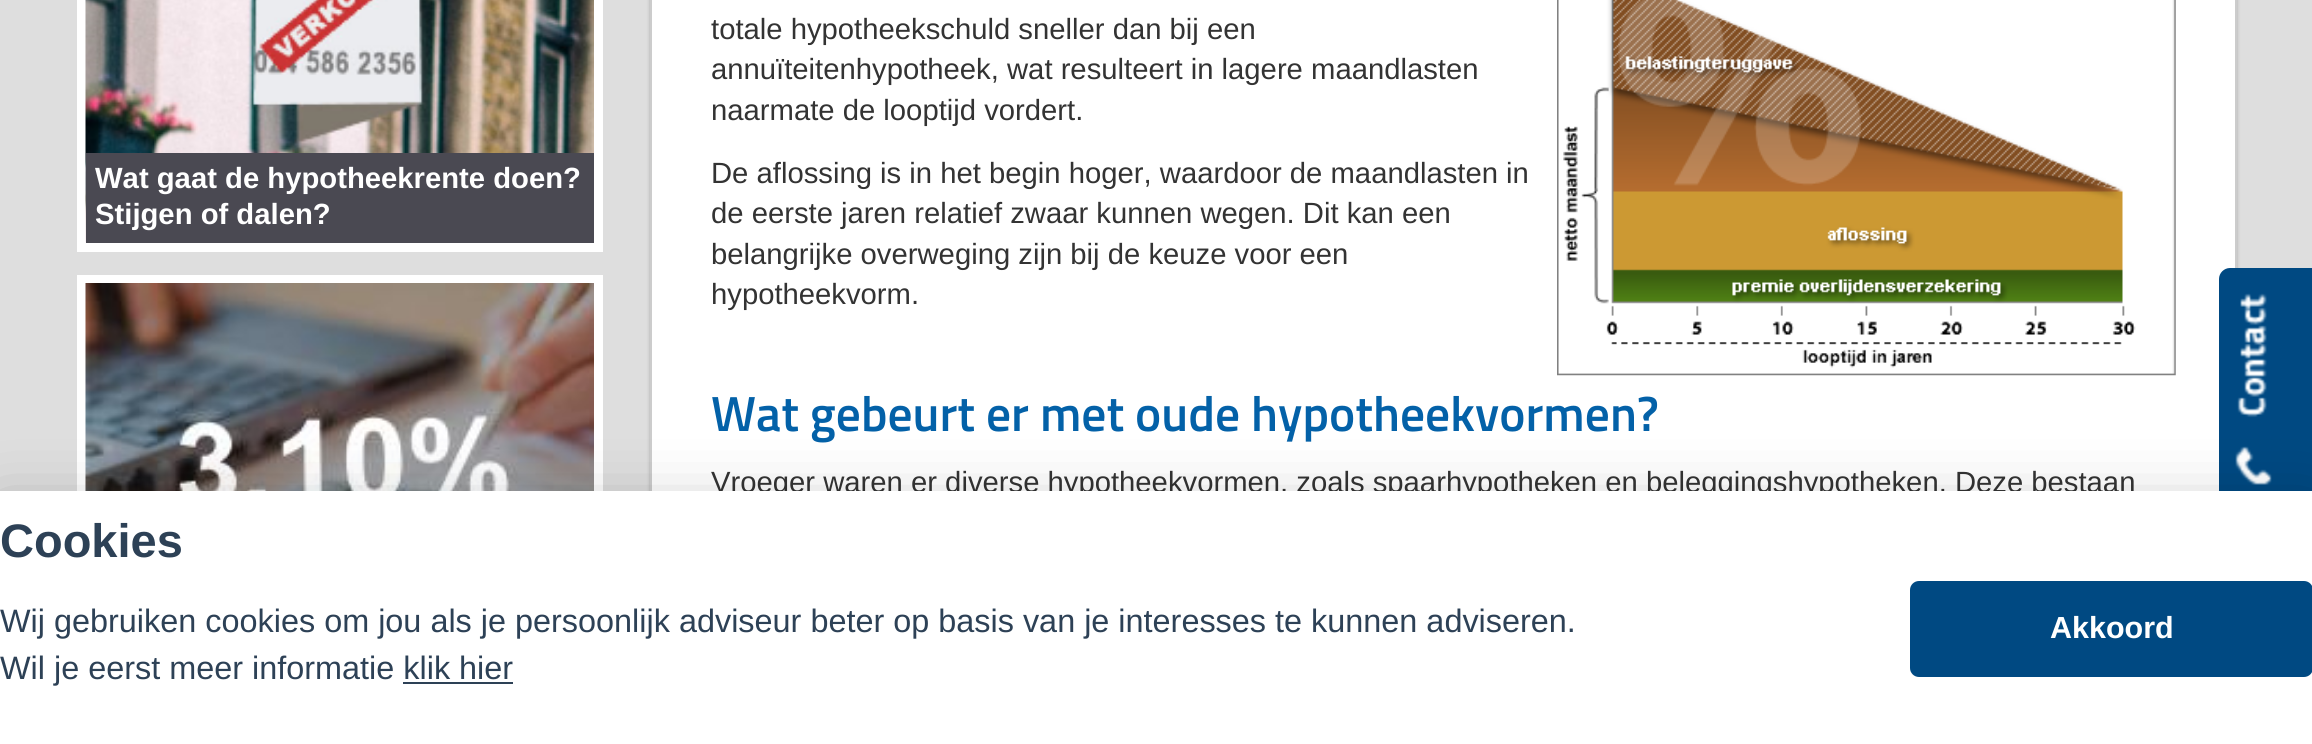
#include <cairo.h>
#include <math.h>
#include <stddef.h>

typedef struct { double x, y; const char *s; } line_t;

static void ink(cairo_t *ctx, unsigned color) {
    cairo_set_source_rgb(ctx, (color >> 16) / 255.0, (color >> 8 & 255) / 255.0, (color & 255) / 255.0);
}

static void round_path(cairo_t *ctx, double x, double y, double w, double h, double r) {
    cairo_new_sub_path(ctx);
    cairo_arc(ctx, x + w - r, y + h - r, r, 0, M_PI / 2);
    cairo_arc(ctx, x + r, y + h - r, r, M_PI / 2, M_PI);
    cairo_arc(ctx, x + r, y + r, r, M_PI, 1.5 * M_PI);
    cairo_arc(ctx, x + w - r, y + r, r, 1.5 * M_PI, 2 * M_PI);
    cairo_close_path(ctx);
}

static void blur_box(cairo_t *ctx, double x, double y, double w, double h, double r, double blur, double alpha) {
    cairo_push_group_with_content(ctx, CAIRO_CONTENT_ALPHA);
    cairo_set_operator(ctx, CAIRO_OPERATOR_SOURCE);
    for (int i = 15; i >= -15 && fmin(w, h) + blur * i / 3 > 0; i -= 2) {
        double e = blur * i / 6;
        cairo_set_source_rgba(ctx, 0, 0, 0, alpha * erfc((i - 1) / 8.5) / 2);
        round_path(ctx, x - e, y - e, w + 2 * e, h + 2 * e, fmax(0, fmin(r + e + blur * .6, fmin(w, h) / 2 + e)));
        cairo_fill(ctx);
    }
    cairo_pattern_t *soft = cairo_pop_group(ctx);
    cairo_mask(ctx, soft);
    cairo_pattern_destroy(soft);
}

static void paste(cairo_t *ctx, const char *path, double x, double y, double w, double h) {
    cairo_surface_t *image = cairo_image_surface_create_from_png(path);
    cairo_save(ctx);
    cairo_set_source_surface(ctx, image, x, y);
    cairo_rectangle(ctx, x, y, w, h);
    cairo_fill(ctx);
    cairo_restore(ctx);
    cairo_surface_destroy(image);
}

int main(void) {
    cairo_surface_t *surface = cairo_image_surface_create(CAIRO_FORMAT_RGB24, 2312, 744);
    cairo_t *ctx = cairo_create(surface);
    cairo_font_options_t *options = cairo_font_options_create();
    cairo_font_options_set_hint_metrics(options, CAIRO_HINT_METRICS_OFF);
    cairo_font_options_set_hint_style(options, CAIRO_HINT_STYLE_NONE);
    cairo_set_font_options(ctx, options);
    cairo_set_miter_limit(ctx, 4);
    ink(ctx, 0xDEDEDE);
    cairo_paint(ctx);
    ink(ctx, 0xFFFFFF);
    cairo_rectangle(ctx, 77, 0, 526, 252);
    cairo_fill(ctx);
    paste(ctx, "media/1.png", 85, 0, 509, 243);
    ink(ctx, 0x4A4952);
    cairo_rectangle(ctx, 86, 153, 508, 90);
    cairo_fill(ctx);
    cairo_select_font_face(ctx, "Liberation Sans", CAIRO_FONT_SLANT_NORMAL, CAIRO_FONT_WEIGHT_BOLD);
    cairo_set_font_size(ctx, 29.25);
    ink(ctx, 0xFFFFFF);
    cairo_move_to(ctx, 95, 188);
    cairo_show_text(ctx, "Wat gaat de hypotheekrente doen?");
    cairo_move_to(ctx, 95, 224);
    cairo_show_text(ctx, "Stijgen of dalen?");
    cairo_rectangle(ctx, 77, 275, 526, 216);
    cairo_fill(ctx);
    paste(ctx, "media/2.png", 85, 283, 509, 208);
    ink(ctx, 0x000000);
    blur_box(ctx, 650, -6, 1587, 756, 0, 2, 0.23);
    ink(ctx, 0xFFFFFF);
    cairo_rectangle(ctx, 652, 0, 1583, 491);
    cairo_fill(ctx);
    cairo_rectangle(ctx, 651, -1, 1585, 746);
    ink(ctx, 0xCCCCCC);
    cairo_stroke(ctx);
    cairo_select_font_face(ctx, "Liberation Sans", CAIRO_FONT_SLANT_NORMAL, CAIRO_FONT_WEIGHT_NORMAL);
    ink(ctx, 0x333333);
    cairo_move_to(ctx, 711, 39);
    cairo_show_text(ctx, "totale hypotheekschuld sneller dan bij een");
    paste(ctx, "media/3.png", 1557, 0, 619, 376);
    {
        static const line_t items[] = {
            {711, 79, "annuïteitenhypotheek, wat resulteert in lagere maandlasten"},
            {711, 120, "naarmate de looptijd vordert."},
            {711, 183, "De aflossing is in het begin hoger, waardoor de maandlasten in"},
            {711, 223, "de eerste jaren relatief zwaar kunnen wegen. Dit kan een"},
            {711, 264, "belangrijke overweging zijn bij de keuze voor een"},
            {711, 304, "hypotheekvorm."},
        };
        for (size_t i = 0; i < sizeof items / sizeof *items; i++) {
            cairo_move_to(ctx, items[i].x, items[i].y);
            cairo_show_text(ctx, items[i].s);
        }
    }
    cairo_select_font_face(ctx, "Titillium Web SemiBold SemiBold", CAIRO_FONT_SLANT_NORMAL, CAIRO_FONT_WEIGHT_NORMAL);
    cairo_set_font_size(ctx, 49.5);
    ink(ctx, 0x0361A8);
    cairo_move_to(ctx, 711, 431);
    cairo_show_text(ctx, "Wat gebeurt er met oude hypotheekvormen?");
    cairo_select_font_face(ctx, "Liberation Sans", CAIRO_FONT_SLANT_NORMAL, CAIRO_FONT_WEIGHT_NORMAL);
    cairo_set_font_size(ctx, 29.25);
    ink(ctx, 0x333333);
    cairo_move_to(ctx, 711, 492);
    cairo_show_text(ctx, "Vroeger waren er diverse hypotheekvormen, zoals spaarhypotheken en beleggingshypotheken. Deze bestaan");
    ink(ctx, 0x004982);
    cairo_new_path(ctx);
    cairo_move_to(ctx, 2230, 268);
    cairo_line_to(ctx, 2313, 268);
    cairo_line_to(ctx, 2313, 504);
    cairo_line_to(ctx, 2230, 504);
    cairo_curve_to(ctx, 2224, 504, 2219, 499, 2219, 493);
    cairo_line_to(ctx, 2219, 279);
    cairo_curve_to(ctx, 2219, 273, 2224, 268, 2230, 268);
    cairo_close_path(ctx);
    cairo_fill(ctx);
    paste(ctx, "media/4.png", 2235, 293, 37, 192);
    ink(ctx, 0x020203);
    blur_box(ctx, 0, 513, 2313, 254, 0, 34, 0.28);
    ink(ctx, 0xFFFFFF);
    cairo_rectangle(ctx, 0, 491, 2312, 253);
    cairo_fill(ctx);
    cairo_select_font_face(ctx, "Liberation Sans", CAIRO_FONT_SLANT_NORMAL, CAIRO_FONT_WEIGHT_BOLD);
    cairo_set_font_size(ctx, 47);
    ink(ctx, 0x2D4156);
    cairo_move_to(ctx, 0, 557);
    cairo_show_text(ctx, "Cookies");
    cairo_select_font_face(ctx, "Liberation Sans", CAIRO_FONT_SLANT_NORMAL, CAIRO_FONT_WEIGHT_NORMAL);
    cairo_set_font_size(ctx, 32.4);
    cairo_move_to(ctx, 0, 632);
    cairo_show_text(ctx, "Wij gebruiken cookies om jou als je persoonlijk adviseur beter op basis van je interesses te kunnen adviseren.");
    cairo_move_to(ctx, 0, 679);
    cairo_show_text(ctx, "Wil je eerst meer informatie klik hier");
    cairo_rectangle(ctx, 403, 682, 110, 2);
    cairo_fill(ctx);
    ink(ctx, 0x004982);
    round_path(ctx, 1910, 581, 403, 96, 9);
    cairo_fill(ctx);
    cairo_select_font_face(ctx, "Liberation Sans", CAIRO_FONT_SLANT_NORMAL, CAIRO_FONT_WEIGHT_BOLD);
    cairo_set_font_size(ctx, 30.5);
    ink(ctx, 0xFFFFFF);
    cairo_move_to(ctx, 2050, 638);
    cairo_show_text(ctx, "Akkoord");
    cairo_surface_write_to_png(surface, "image.png");
    cairo_font_options_destroy(options);
    cairo_destroy(ctx);
    cairo_surface_destroy(surface);
    return 0;
}
